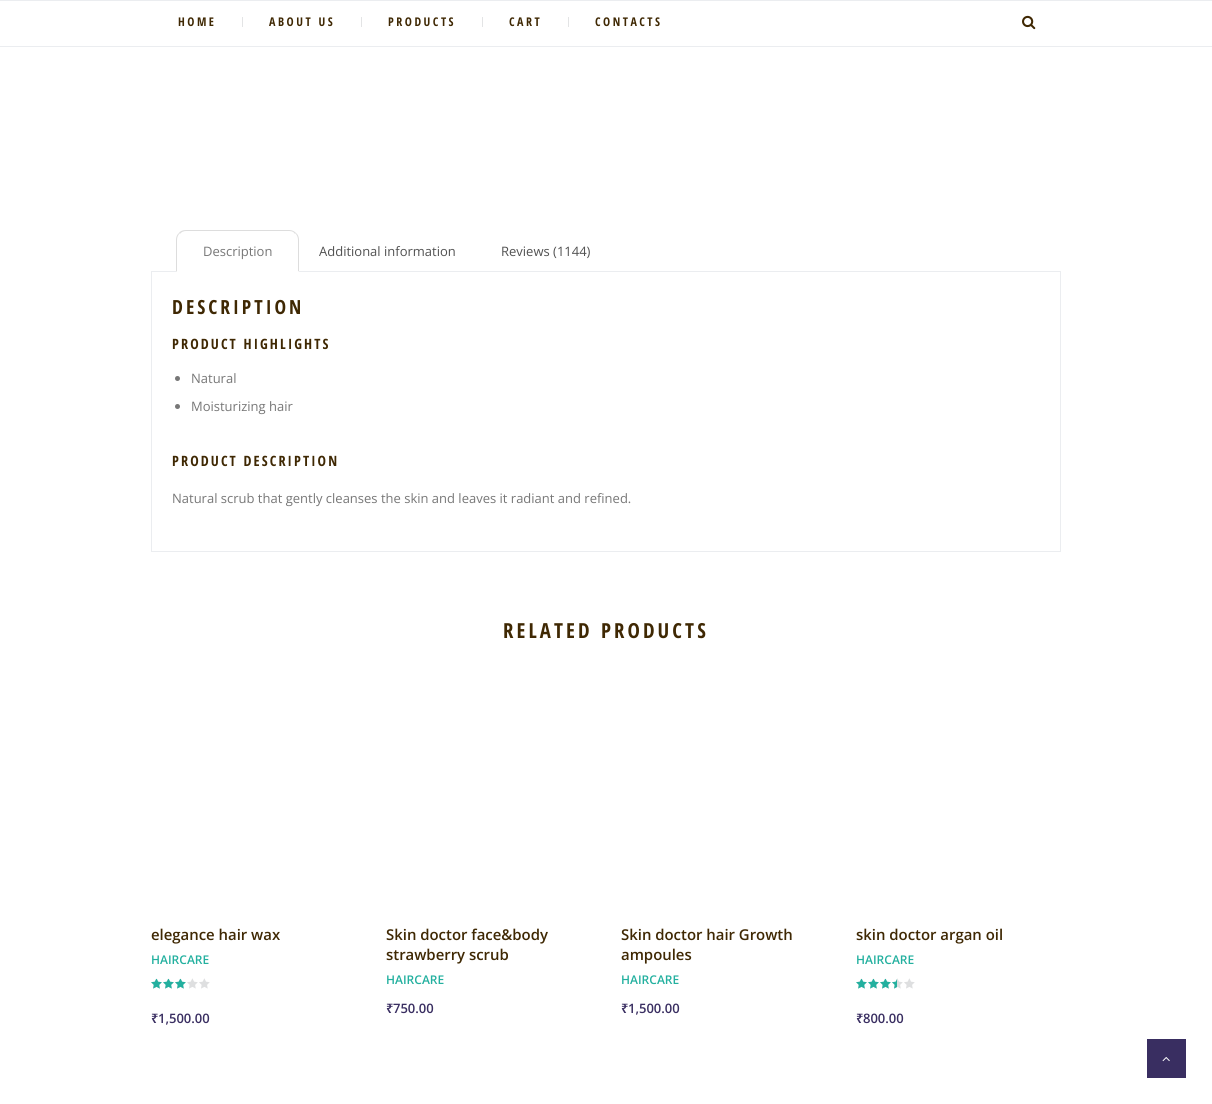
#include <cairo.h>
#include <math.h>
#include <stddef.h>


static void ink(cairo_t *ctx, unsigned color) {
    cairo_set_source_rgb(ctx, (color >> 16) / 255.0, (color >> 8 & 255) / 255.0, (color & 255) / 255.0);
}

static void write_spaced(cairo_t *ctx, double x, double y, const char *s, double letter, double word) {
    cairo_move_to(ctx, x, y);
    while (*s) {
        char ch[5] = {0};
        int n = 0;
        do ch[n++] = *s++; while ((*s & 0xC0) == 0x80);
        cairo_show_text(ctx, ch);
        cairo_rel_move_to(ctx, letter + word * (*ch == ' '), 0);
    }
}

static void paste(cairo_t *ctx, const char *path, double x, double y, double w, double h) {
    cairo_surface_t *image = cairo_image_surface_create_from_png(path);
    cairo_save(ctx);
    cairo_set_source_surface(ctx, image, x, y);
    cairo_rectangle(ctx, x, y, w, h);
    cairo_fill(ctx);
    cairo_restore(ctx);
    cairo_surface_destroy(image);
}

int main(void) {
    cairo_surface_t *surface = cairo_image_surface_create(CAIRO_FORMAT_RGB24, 1212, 1104);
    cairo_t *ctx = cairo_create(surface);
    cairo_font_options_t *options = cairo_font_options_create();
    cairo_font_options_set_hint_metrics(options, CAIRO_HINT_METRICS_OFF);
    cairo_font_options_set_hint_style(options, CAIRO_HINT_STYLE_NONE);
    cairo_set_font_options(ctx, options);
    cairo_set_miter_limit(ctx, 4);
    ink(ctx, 0xFFFFFF);
    cairo_paint(ctx);
    ink(ctx, 0xEBEDF0);
    cairo_rectangle(ctx, 0, 0, 1212, 1);
    cairo_fill(ctx);
    cairo_rectangle(ctx, 0, 46, 1212, 1);
    cairo_fill(ctx);
    cairo_select_font_face(ctx, "Open Sans Condensed", CAIRO_FONT_SLANT_NORMAL, CAIRO_FONT_WEIGHT_BOLD);
    cairo_set_font_size(ctx, 12);
    ink(ctx, 0x3F2803);
    write_spaced(ctx, 178, 26, "HOME", 2.5, 0);
    cairo_new_path(ctx);
    cairo_move_to(ctx, 242.5, 17.5);
    cairo_line_to(ctx, 242.5, 26.5);
    ink(ctx, 0xC8C9CC);
    cairo_set_line_width(ctx, 1);
    cairo_set_dash(ctx, (double[]){1, 1}, 2, 0);
    cairo_stroke(ctx);
    ink(ctx, 0x3F2803);
    write_spaced(ctx, 269, 26, "ABOUT US", 2.5, 0);
    cairo_new_path(ctx);
    cairo_move_to(ctx, 361.5, 17.5);
    cairo_line_to(ctx, 361.5, 26.5);
    ink(ctx, 0xC8C9CC);
    cairo_stroke(ctx);
    ink(ctx, 0x3F2803);
    write_spaced(ctx, 388, 26, "PRODUCTS", 2.5, 0);
    cairo_new_path(ctx);
    cairo_move_to(ctx, 482.5, 17.5);
    cairo_line_to(ctx, 482.5, 26.5);
    ink(ctx, 0xC8C9CC);
    cairo_stroke(ctx);
    ink(ctx, 0x3F2803);
    write_spaced(ctx, 509, 26, "CART", 2.5, 0);
    cairo_new_path(ctx);
    cairo_move_to(ctx, 568.5, 17.5);
    cairo_line_to(ctx, 568.5, 26.5);
    ink(ctx, 0xC8C9CC);
    cairo_stroke(ctx);
    ink(ctx, 0x3F2803);
    write_spaced(ctx, 595, 26, "CONTACTS", 2.5, 0);
    paste(ctx, "media/1.png", 1022, 15, 14, 15);
    cairo_rectangle(ctx, 151.5, 271.5, 909, 280);
    ink(ctx, 0xEBEDF0);
    cairo_set_dash(ctx, NULL, 0, 0);
    cairo_stroke(ctx);
    ink(ctx, 0xFFFFFF);
    cairo_new_path(ctx);
    cairo_move_to(ctx, 186, 230);
    cairo_line_to(ctx, 289, 230);
    cairo_curve_to(ctx, 294.5, 230, 299, 234.5, 299, 240);
    cairo_line_to(ctx, 299, 272);
    cairo_line_to(ctx, 176, 272);
    cairo_line_to(ctx, 176, 240);
    cairo_curve_to(ctx, 176, 234.5, 180.5, 230, 186, 230);
    cairo_close_path(ctx);
    cairo_fill(ctx);
    ink(ctx, 0xDDDDDD);
    cairo_new_path(ctx);
    cairo_move_to(ctx, 186, 230);
    cairo_curve_to(ctx, 183, 230, 180, 231, 179, 233);
    cairo_line_to(ctx, 180, 234);
    cairo_curve_to(ctx, 181, 232, 184, 231, 186, 231);
    cairo_line_to(ctx, 289, 231);
    cairo_curve_to(ctx, 292, 231, 294, 232, 295, 234);
    cairo_line_to(ctx, 296, 233);
    cairo_curve_to(ctx, 294, 231, 292, 230, 289, 230);
    cairo_close_path(ctx);
    cairo_fill(ctx);
    cairo_new_path(ctx);
    cairo_move_to(ctx, 299, 272);
    cairo_line_to(ctx, 299, 240);
    cairo_curve_to(ctx, 299, 237, 298, 234.5, 296, 233);
    cairo_line_to(ctx, 295.5, 233.5);
    cairo_curve_to(ctx, 297, 235, 298, 237.5, 298, 240);
    cairo_line_to(ctx, 298, 271);
    cairo_close_path(ctx);
    cairo_fill(ctx);
    ink(ctx, 0xFFFFFF);
    cairo_new_path(ctx);
    cairo_move_to(ctx, 299, 272);
    cairo_line_to(ctx, 298, 271);
    cairo_line_to(ctx, 177, 271);
    cairo_line_to(ctx, 176, 272);
    cairo_close_path(ctx);
    cairo_fill(ctx);
    ink(ctx, 0xDDDDDD);
    cairo_new_path(ctx);
    cairo_move_to(ctx, 176, 272);
    cairo_line_to(ctx, 177, 271);
    cairo_line_to(ctx, 177, 240);
    cairo_curve_to(ctx, 177, 237.5, 178, 235, 179.5, 233.5);
    cairo_line_to(ctx, 179, 233);
    cairo_curve_to(ctx, 177, 234.5, 176, 237, 176, 240);
    cairo_close_path(ctx);
    cairo_fill(ctx);
    cairo_select_font_face(ctx, "Open Sans", CAIRO_FONT_SLANT_NORMAL, CAIRO_FONT_WEIGHT_NORMAL);
    cairo_set_font_size(ctx, 13);
    ink(ctx, 0x777777);
    cairo_move_to(ctx, 203, 256);
    cairo_show_text(ctx, "Description");
    ink(ctx, 0x515151);
    cairo_move_to(ctx, 319, 256);
    cairo_show_text(ctx, "Additional information");
    cairo_move_to(ctx, 501, 256);
    cairo_show_text(ctx, "Reviews (1144)");
    cairo_select_font_face(ctx, "Open Sans Condensed", CAIRO_FONT_SLANT_NORMAL, CAIRO_FONT_WEIGHT_BOLD);
    cairo_set_font_size(ctx, 19.5);
    ink(ctx, 0x3F2803);
    write_spaced(ctx, 172, 314, "DESCRIPTION", 3, 0);
    cairo_set_font_size(ctx, 14.25);
    write_spaced(ctx, 172, 349, "PRODUCT HIGHLIGHTS", 2.1, 0);
    ink(ctx, 0x777777);
    cairo_new_path(ctx);
    cairo_arc(ctx, 177.5, 378.5, 2.5, 0, 2 * M_PI);
    cairo_fill(ctx);
    cairo_select_font_face(ctx, "Open Sans", CAIRO_FONT_SLANT_NORMAL, CAIRO_FONT_WEIGHT_NORMAL);
    cairo_set_font_size(ctx, 13);
    cairo_move_to(ctx, 191, 383);
    cairo_show_text(ctx, "Natural");
    cairo_new_path(ctx);
    cairo_arc(ctx, 177.5, 406.5, 2.5, 0, 2 * M_PI);
    cairo_fill(ctx);
    cairo_move_to(ctx, 191, 411);
    cairo_show_text(ctx, "Moisturizing hair");
    cairo_select_font_face(ctx, "Open Sans Condensed", CAIRO_FONT_SLANT_NORMAL, CAIRO_FONT_WEIGHT_BOLD);
    cairo_set_font_size(ctx, 14.25);
    ink(ctx, 0x3F2803);
    write_spaced(ctx, 172, 466, "PRODUCT DESCRIPTION", 2.1, 0);
    cairo_select_font_face(ctx, "Open Sans", CAIRO_FONT_SLANT_NORMAL, CAIRO_FONT_WEIGHT_NORMAL);
    cairo_set_font_size(ctx, 13);
    ink(ctx, 0x777777);
    cairo_move_to(ctx, 172, 503);
    cairo_show_text(ctx, "Natural scrub that gently cleanses the skin and leaves it radiant and refined.");
    cairo_select_font_face(ctx, "Open Sans Condensed", CAIRO_FONT_SLANT_NORMAL, CAIRO_FONT_WEIGHT_BOLD);
    cairo_set_font_size(ctx, 20.75);
    ink(ctx, 0x3F2803);
    write_spaced(ctx, 503, 638, "RELATED PRODUCTS", 3.1, 0);
    cairo_select_font_face(ctx, "Open Sans SemiBold", CAIRO_FONT_SLANT_NORMAL, CAIRO_FONT_WEIGHT_NORMAL);
    cairo_set_font_size(ctx, 14.9);
    cairo_move_to(ctx, 151, 940);
    cairo_show_text(ctx, "elegance hair wax");
    cairo_set_font_size(ctx, 12);
    ink(ctx, 0x23B09F);
    cairo_move_to(ctx, 151, 964);
    cairo_show_text(ctx, "HAIRCARE");
    paste(ctx, "media/2.png", 151, 978, 59, 11);
    paste(ctx, "media/3.png", 151, 979, 35, 10);
    cairo_select_font_face(ctx, "Noto Sans SemiBold", CAIRO_FONT_SLANT_NORMAL, CAIRO_FONT_WEIGHT_NORMAL);
    cairo_set_font_size(ctx, 13);
    ink(ctx, 0x392E61);
    cairo_move_to(ctx, 151, 1023);
    cairo_show_text(ctx, "₹");
    cairo_select_font_face(ctx, "Open Sans SemiBold", CAIRO_FONT_SLANT_NORMAL, CAIRO_FONT_WEIGHT_NORMAL);
    cairo_move_to(ctx, 158, 1023);
    cairo_show_text(ctx, "1,500.00");
    cairo_set_font_size(ctx, 14.9);
    ink(ctx, 0x3F2803);
    cairo_move_to(ctx, 386, 940);
    cairo_show_text(ctx, "Skin doctor face&body");
    cairo_move_to(ctx, 386, 960);
    cairo_show_text(ctx, "strawberry scrub");
    cairo_set_font_size(ctx, 12);
    ink(ctx, 0x23B09F);
    cairo_move_to(ctx, 386, 984);
    cairo_show_text(ctx, "HAIRCARE");
    cairo_select_font_face(ctx, "Noto Sans SemiBold", CAIRO_FONT_SLANT_NORMAL, CAIRO_FONT_WEIGHT_NORMAL);
    cairo_set_font_size(ctx, 13);
    ink(ctx, 0x392E61);
    cairo_move_to(ctx, 386, 1013);
    cairo_show_text(ctx, "₹");
    cairo_select_font_face(ctx, "Open Sans SemiBold", CAIRO_FONT_SLANT_NORMAL, CAIRO_FONT_WEIGHT_NORMAL);
    cairo_move_to(ctx, 393, 1013);
    cairo_show_text(ctx, "750.00");
    cairo_set_font_size(ctx, 14.9);
    ink(ctx, 0x3F2803);
    cairo_move_to(ctx, 621, 940);
    cairo_show_text(ctx, "Skin doctor hair Growth");
    cairo_move_to(ctx, 621, 960);
    cairo_show_text(ctx, "ampoules");
    cairo_set_font_size(ctx, 12);
    ink(ctx, 0x23B09F);
    cairo_move_to(ctx, 621, 984);
    cairo_show_text(ctx, "HAIRCARE");
    cairo_select_font_face(ctx, "Noto Sans SemiBold", CAIRO_FONT_SLANT_NORMAL, CAIRO_FONT_WEIGHT_NORMAL);
    cairo_set_font_size(ctx, 13);
    ink(ctx, 0x392E61);
    cairo_move_to(ctx, 621, 1013);
    cairo_show_text(ctx, "₹");
    cairo_select_font_face(ctx, "Open Sans SemiBold", CAIRO_FONT_SLANT_NORMAL, CAIRO_FONT_WEIGHT_NORMAL);
    cairo_move_to(ctx, 628, 1013);
    cairo_show_text(ctx, "1,500.00");
    cairo_set_font_size(ctx, 14.9);
    ink(ctx, 0x3F2803);
    cairo_move_to(ctx, 856, 940);
    cairo_show_text(ctx, "skin doctor argan oil");
    cairo_set_font_size(ctx, 12);
    ink(ctx, 0x23B09F);
    cairo_move_to(ctx, 856, 964);
    cairo_show_text(ctx, "HAIRCARE");
    paste(ctx, "media/2.png", 856, 978, 59, 11);
    paste(ctx, "media/4.png", 856, 979, 41, 10);
    cairo_select_font_face(ctx, "Noto Sans SemiBold", CAIRO_FONT_SLANT_NORMAL, CAIRO_FONT_WEIGHT_NORMAL);
    cairo_set_font_size(ctx, 13);
    ink(ctx, 0x392E61);
    cairo_move_to(ctx, 856, 1023);
    cairo_show_text(ctx, "₹");
    cairo_select_font_face(ctx, "Open Sans SemiBold", CAIRO_FONT_SLANT_NORMAL, CAIRO_FONT_WEIGHT_NORMAL);
    cairo_move_to(ctx, 863, 1023);
    cairo_show_text(ctx, "800.00");
    cairo_rectangle(ctx, 1147, 1039, 39, 39);
    cairo_fill(ctx);
    paste(ctx, "media/5.png", 1162, 1057, 8, 5);
    cairo_surface_write_to_png(surface, "image.png");
    cairo_font_options_destroy(options);
    cairo_destroy(ctx);
    cairo_surface_destroy(surface);
    return 0;
}
